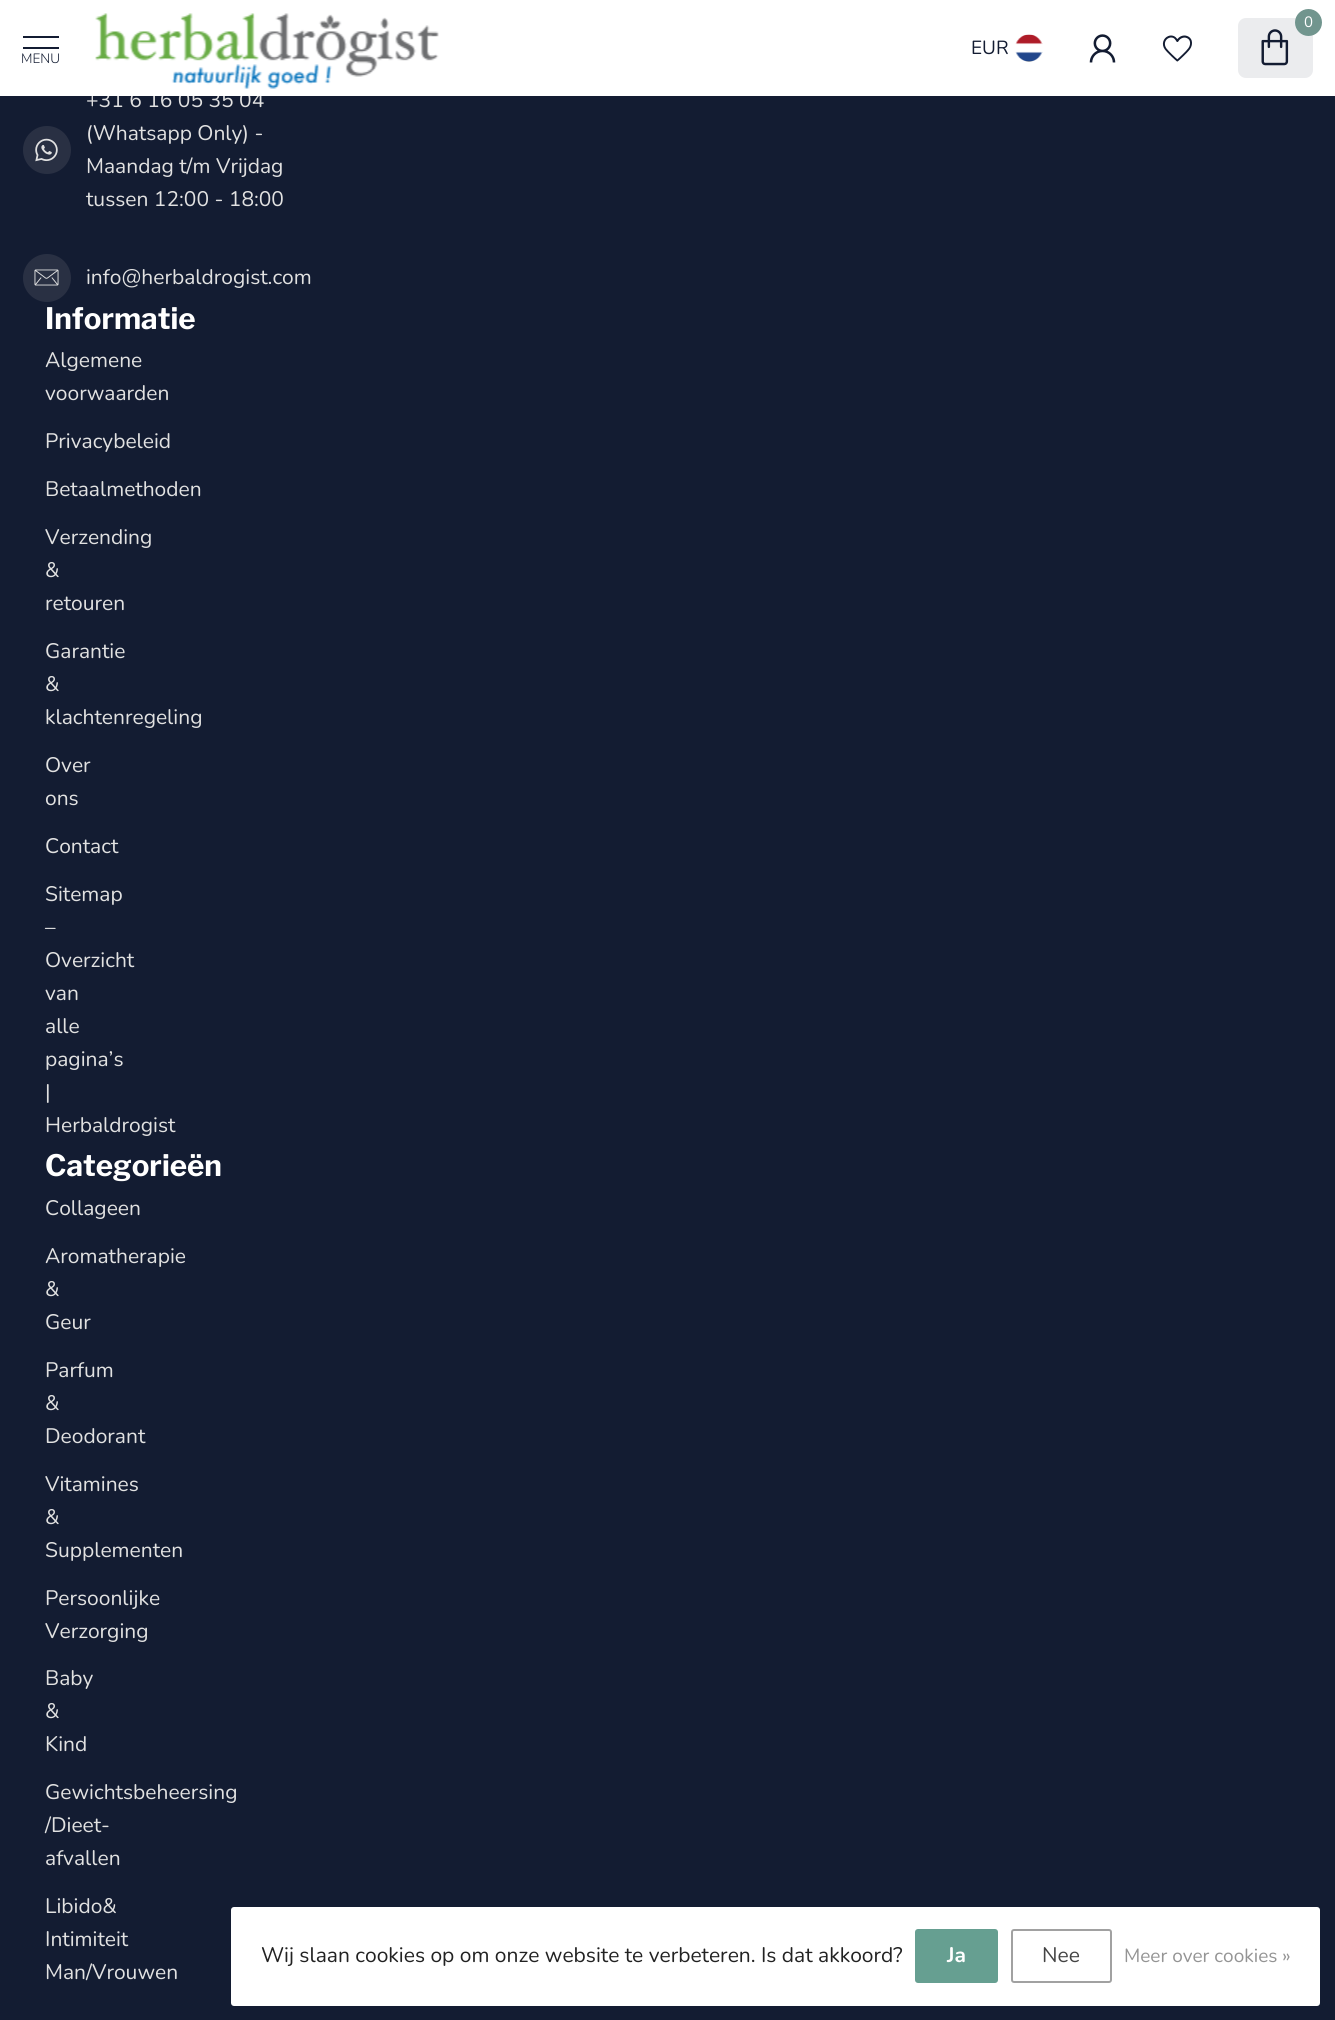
#include <cairo.h>
#include <math.h>
#include <stddef.h>

typedef struct { double x, y; const char *s; } line_t;

static void ink(cairo_t *ctx, unsigned color) {
    cairo_set_source_rgb(ctx, (color >> 16) / 255.0, (color >> 8 & 255) / 255.0, (color & 255) / 255.0);
}

static void round_path(cairo_t *ctx, double x, double y, double w, double h, double r) {
    cairo_new_sub_path(ctx);
    cairo_arc(ctx, x + w - r, y + h - r, r, 0, M_PI / 2);
    cairo_arc(ctx, x + r, y + h - r, r, M_PI / 2, M_PI);
    cairo_arc(ctx, x + r, y + r, r, M_PI, 1.5 * M_PI);
    cairo_arc(ctx, x + w - r, y + r, r, 1.5 * M_PI, 2 * M_PI);
    cairo_close_path(ctx);
}

static void paste(cairo_t *ctx, const char *path, double x, double y, double w, double h) {
    cairo_surface_t *image = cairo_image_surface_create_from_png(path);
    cairo_save(ctx);
    cairo_set_source_surface(ctx, image, x, y);
    cairo_rectangle(ctx, x, y, w, h);
    cairo_fill(ctx);
    cairo_restore(ctx);
    cairo_surface_destroy(image);
}

int main(void) {
    cairo_surface_t *surface = cairo_image_surface_create(CAIRO_FORMAT_RGB24, 1335, 2020);
    cairo_t *ctx = cairo_create(surface);
    cairo_font_options_t *options = cairo_font_options_create();
    cairo_font_options_set_hint_metrics(options, CAIRO_HINT_METRICS_OFF);
    cairo_font_options_set_hint_style(options, CAIRO_HINT_STYLE_NONE);
    cairo_set_font_options(ctx, options);
    cairo_set_miter_limit(ctx, 4);
    ink(ctx, 0x131C32);
    cairo_paint(ctx);
    cairo_select_font_face(ctx, "Nunito", CAIRO_FONT_SLANT_NORMAL, CAIRO_FONT_WEIGHT_NORMAL);
    cairo_set_font_size(ctx, 21);
    ink(ctx, 0xE1E1E1);
    cairo_move_to(ctx, 86, 107);
    cairo_show_text(ctx, "+31 6 16 05 35 04");
    ink(ctx, 0xFFFFFF);
    cairo_rectangle(ctx, 0, 0, 1335, 96);
    cairo_fill(ctx);
    ink(ctx, 0xEBECEE);
    round_path(ctx, 1238, 18, 75, 60, 8);
    cairo_fill(ctx);
    ink(ctx, 0x71958E);
    cairo_arc(ctx, 1308.5, 22.5, 13.5, 0, 2 * M_PI);
    cairo_fill(ctx);
    cairo_set_font_size(ctx, 15);
    ink(ctx, 0xFFFFFF);
    cairo_move_to(ctx, 1304, 27);
    cairo_show_text(ctx, "0");
    paste(ctx, "media/1.png", 1261, 29, 28, 37);
    cairo_set_font_size(ctx, 19);
    ink(ctx, 0x131C32);
    cairo_move_to(ctx, 971, 54);
    cairo_show_text(ctx, "EUR");
    paste(ctx, "media/2.png", 1015, 34, 28, 28);
    paste(ctx, "media/3.png", 1089, 34, 27, 29);
    paste(ctx, "media/4.png", 1162, 35, 30, 27);
    cairo_rectangle(ctx, 23, 36, 36, 2);
    cairo_fill(ctx);
    cairo_rectangle(ctx, 23, 47, 36, 2);
    cairo_fill(ctx);
    cairo_select_font_face(ctx, "Nunito Light", CAIRO_FONT_SLANT_NORMAL, CAIRO_FONT_WEIGHT_NORMAL);
    cairo_set_font_size(ctx, 13.5);
    cairo_move_to(ctx, 21, 63);
    cairo_show_text(ctx, "MENU");
    paste(ctx, "media/5.png", 95, 13, 344, 76);
    ink(ctx, 0x293043);
    cairo_arc(ctx, 47, 150, 24, 0, 2 * M_PI);
    cairo_fill(ctx);
    paste(ctx, "media/6.png", 35, 138, 23, 24);
    cairo_select_font_face(ctx, "Nunito", CAIRO_FONT_SLANT_NORMAL, CAIRO_FONT_WEIGHT_NORMAL);
    cairo_set_font_size(ctx, 21);
    ink(ctx, 0xE1E1E1);
    {
        static const line_t items[] = {
            {86, 140, "(Whatsapp Only) -"},
            {86, 173, "Maandag t/m Vrijdag"},
            {86, 206, "tussen 12:00 - 18:00"},
        };
        for (size_t i = 0; i < sizeof items / sizeof *items; i++) {
            cairo_move_to(ctx, items[i].x, items[i].y);
            cairo_show_text(ctx, items[i].s);
        }
    }
    ink(ctx, 0x293043);
    cairo_new_path(ctx);
    cairo_arc(ctx, 47, 278, 24, 0, 2 * M_PI);
    cairo_fill(ctx);
    paste(ctx, "media/7.png", 34, 269, 25, 17);
    ink(ctx, 0xE1E1E1);
    cairo_move_to(ctx, 86, 284);
    cairo_show_text(ctx, "info@herbaldrogist.com");
    cairo_select_font_face(ctx, "Libre Franklin", CAIRO_FONT_SLANT_NORMAL, CAIRO_FONT_WEIGHT_BOLD);
    cairo_set_font_size(ctx, 29.5);
    ink(ctx, 0xFFFFFF);
    cairo_move_to(ctx, 45, 329);
    cairo_show_text(ctx, "Informatie");
    cairo_select_font_face(ctx, "Nunito", CAIRO_FONT_SLANT_NORMAL, CAIRO_FONT_WEIGHT_NORMAL);
    cairo_set_font_size(ctx, 21);
    ink(ctx, 0xE1E1E1);
    {
        static const line_t items[] = {
            {45, 367, "Algemene"},
            {45, 400, "voorwaarden"},
            {45, 448, "Privacybeleid"},
            {45, 496, "Betaalmethoden"},
            {45, 544, "Verzending"},
            {45, 577, "&"},
            {45, 610, "retouren"},
            {45, 658, "Garantie"},
            {45, 691, "&"},
            {45, 724, "klachtenregeling"},
            {45, 772, "Over"},
            {45, 805, "ons"},
            {45, 853, "Contact"},
            {45, 901, "Sitemap"},
            {45, 934, "–"},
            {45, 967, "Overzicht"},
            {45, 1000, "van"},
            {45, 1033, "alle"},
            {45, 1066, "pagina’s"},
            {45, 1099, "|"},
            {45, 1132, "Herbaldrogist"},
        };
        for (size_t i = 0; i < sizeof items / sizeof *items; i++) {
            cairo_move_to(ctx, items[i].x, items[i].y);
            cairo_show_text(ctx, items[i].s);
        }
    }
    cairo_select_font_face(ctx, "Libre Franklin", CAIRO_FONT_SLANT_NORMAL, CAIRO_FONT_WEIGHT_BOLD);
    cairo_set_font_size(ctx, 29.5);
    ink(ctx, 0xFFFFFF);
    cairo_move_to(ctx, 45, 1176);
    cairo_show_text(ctx, "Categorieën");
    cairo_select_font_face(ctx, "Nunito", CAIRO_FONT_SLANT_NORMAL, CAIRO_FONT_WEIGHT_NORMAL);
    cairo_set_font_size(ctx, 21);
    ink(ctx, 0xE1E1E1);
    {
        static const line_t items[] = {
            {45, 1215, "Collageen"},
            {45, 1263, "Aromatherapie"},
            {45, 1296, "&"},
            {45, 1329, "Geur"},
            {45, 1377, "Parfum"},
            {45, 1410, "&"},
            {45, 1443, "Deodorant"},
            {45, 1491, "Vitamines"},
            {45, 1524, "&"},
            {45, 1557, "Supplementen"},
            {45, 1605, "Persoonlijke"},
            {45, 1638, "Verzorging"},
            {45, 1685, "Baby"},
            {45, 1718, "&"},
            {45, 1751, "Kind"},
            {45, 1799, "Gewichtsbeheersing"},
            {45, 1832, "/Dieet-"},
            {45, 1865, "afvallen"},
            {45, 1913, "Libido&"},
            {45, 1946, "Intimiteit"},
            {45, 1979, "Man/Vrouwen"},
        };
        for (size_t i = 0; i < sizeof items / sizeof *items; i++) {
            cairo_move_to(ctx, items[i].x, items[i].y);
            cairo_show_text(ctx, items[i].s);
        }
    }
    ink(ctx, 0xFFFFFF);
    round_path(ctx, 231, 1907, 1089, 99, 3);
    cairo_fill(ctx);
    ink(ctx, 0x222222);
    cairo_move_to(ctx, 261, 1962);
    cairo_show_text(ctx, "Wij slaan cookies op om onze website te verbeteren. Is dat akkoord?");
    ink(ctx, 0x669F91);
    round_path(ctx, 915, 1929, 83, 54, 3);
    cairo_fill(ctx);
    cairo_select_font_face(ctx, "Nunito", CAIRO_FONT_SLANT_NORMAL, CAIRO_FONT_WEIGHT_BOLD);
    ink(ctx, 0xFFFFFF);
    cairo_move_to(ctx, 947, 1962);
    cairo_show_text(ctx, "Ja");
    round_path(ctx, 1012, 1930, 99, 52, 2);
    ink(ctx, 0xA1A1A1);
    cairo_stroke(ctx);
    cairo_select_font_face(ctx, "Nunito", CAIRO_FONT_SLANT_NORMAL, CAIRO_FONT_WEIGHT_NORMAL);
    ink(ctx, 0x444444);
    cairo_move_to(ctx, 1042, 1962);
    cairo_show_text(ctx, "Nee");
    cairo_set_font_size(ctx, 19);
    ink(ctx, 0x949494);
    cairo_move_to(ctx, 1124, 1962);
    cairo_show_text(ctx, "Meer over cookies »");
    cairo_surface_write_to_png(surface, "image.png");
    cairo_font_options_destroy(options);
    cairo_destroy(ctx);
    cairo_surface_destroy(surface);
    return 0;
}
